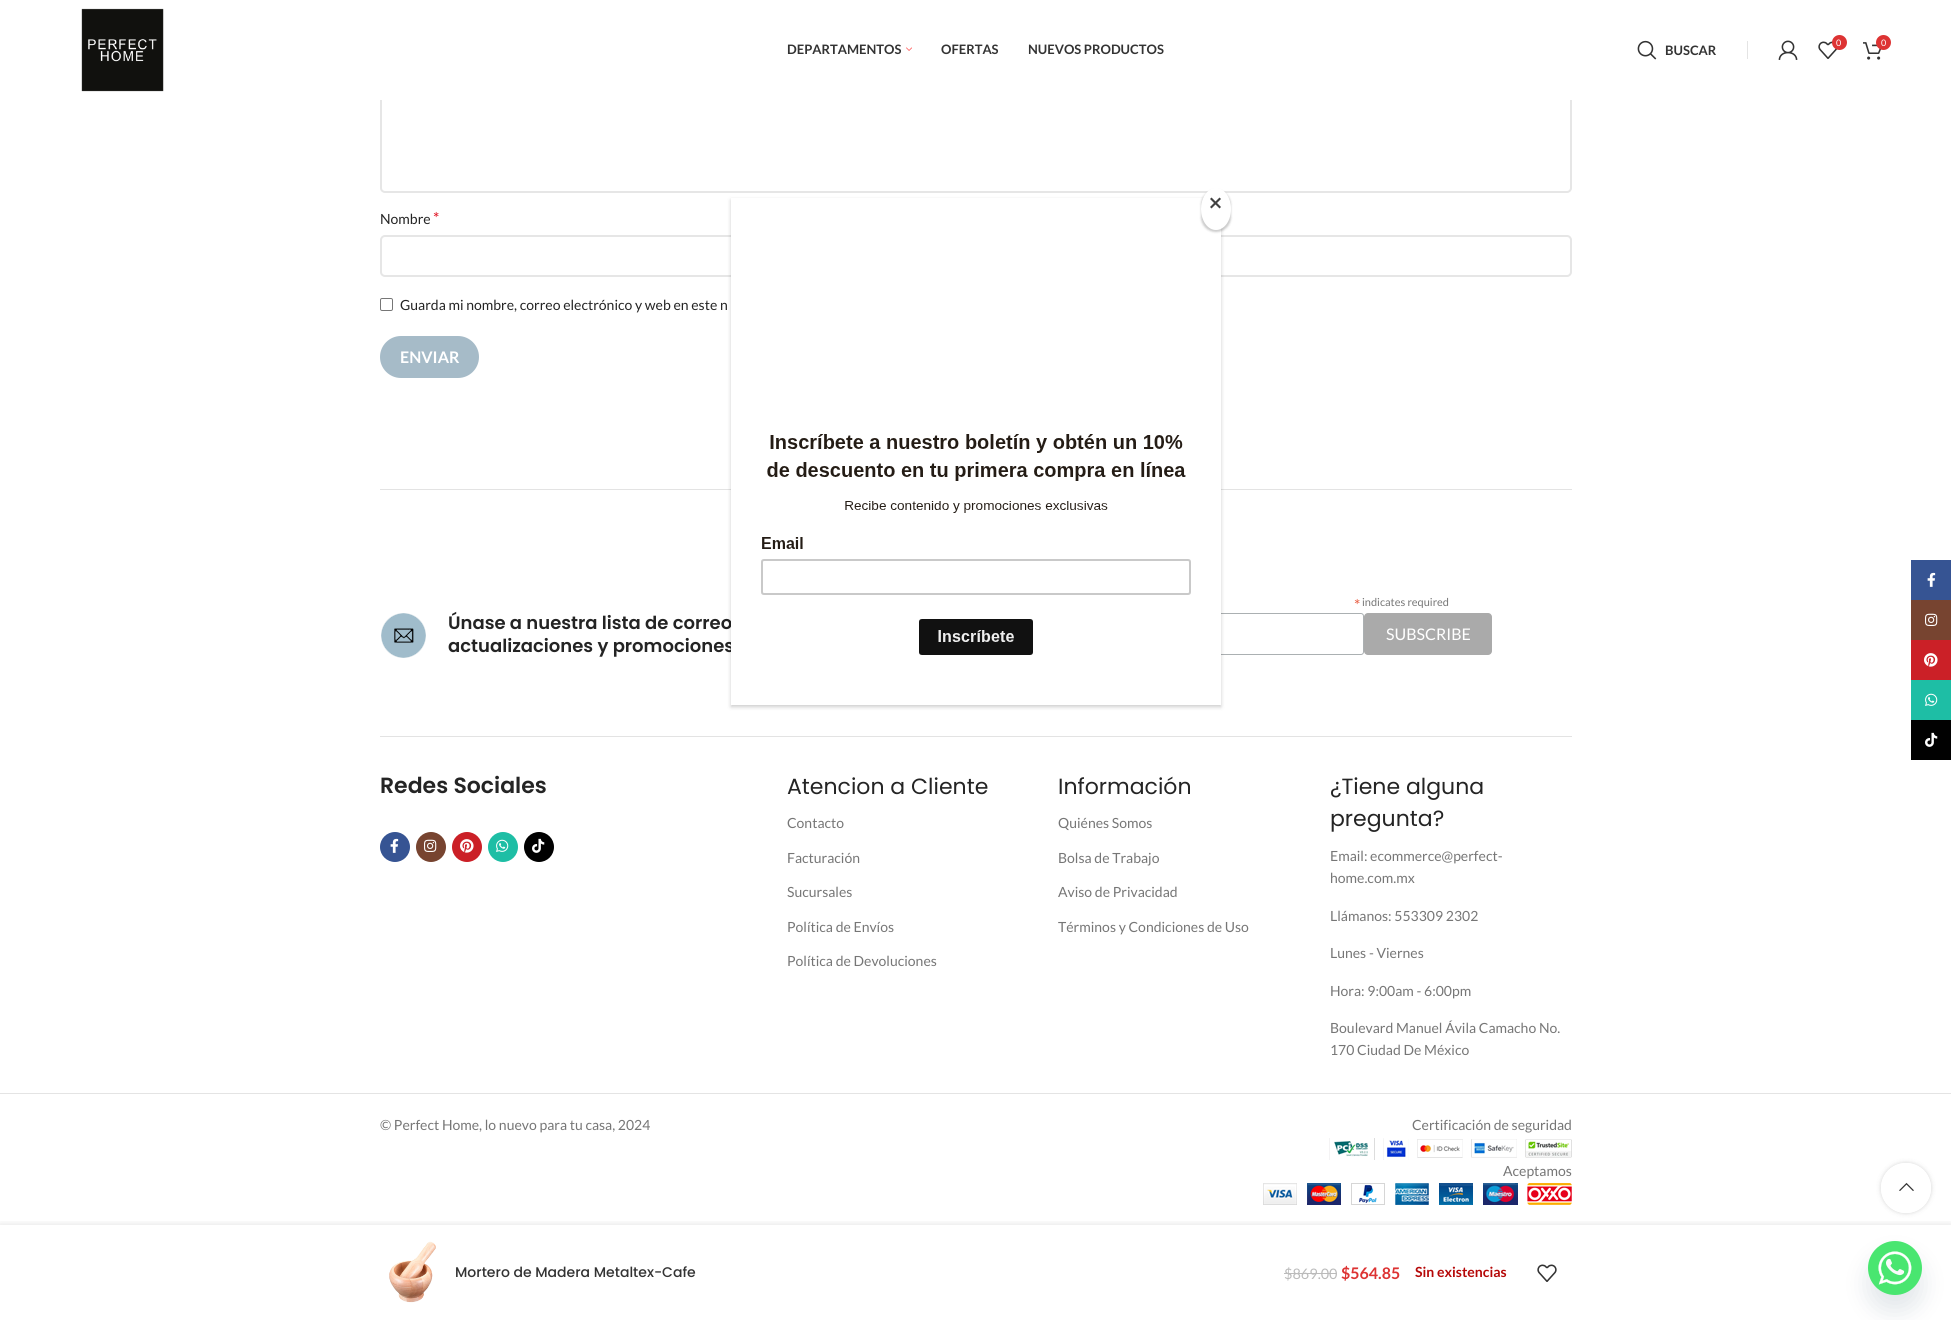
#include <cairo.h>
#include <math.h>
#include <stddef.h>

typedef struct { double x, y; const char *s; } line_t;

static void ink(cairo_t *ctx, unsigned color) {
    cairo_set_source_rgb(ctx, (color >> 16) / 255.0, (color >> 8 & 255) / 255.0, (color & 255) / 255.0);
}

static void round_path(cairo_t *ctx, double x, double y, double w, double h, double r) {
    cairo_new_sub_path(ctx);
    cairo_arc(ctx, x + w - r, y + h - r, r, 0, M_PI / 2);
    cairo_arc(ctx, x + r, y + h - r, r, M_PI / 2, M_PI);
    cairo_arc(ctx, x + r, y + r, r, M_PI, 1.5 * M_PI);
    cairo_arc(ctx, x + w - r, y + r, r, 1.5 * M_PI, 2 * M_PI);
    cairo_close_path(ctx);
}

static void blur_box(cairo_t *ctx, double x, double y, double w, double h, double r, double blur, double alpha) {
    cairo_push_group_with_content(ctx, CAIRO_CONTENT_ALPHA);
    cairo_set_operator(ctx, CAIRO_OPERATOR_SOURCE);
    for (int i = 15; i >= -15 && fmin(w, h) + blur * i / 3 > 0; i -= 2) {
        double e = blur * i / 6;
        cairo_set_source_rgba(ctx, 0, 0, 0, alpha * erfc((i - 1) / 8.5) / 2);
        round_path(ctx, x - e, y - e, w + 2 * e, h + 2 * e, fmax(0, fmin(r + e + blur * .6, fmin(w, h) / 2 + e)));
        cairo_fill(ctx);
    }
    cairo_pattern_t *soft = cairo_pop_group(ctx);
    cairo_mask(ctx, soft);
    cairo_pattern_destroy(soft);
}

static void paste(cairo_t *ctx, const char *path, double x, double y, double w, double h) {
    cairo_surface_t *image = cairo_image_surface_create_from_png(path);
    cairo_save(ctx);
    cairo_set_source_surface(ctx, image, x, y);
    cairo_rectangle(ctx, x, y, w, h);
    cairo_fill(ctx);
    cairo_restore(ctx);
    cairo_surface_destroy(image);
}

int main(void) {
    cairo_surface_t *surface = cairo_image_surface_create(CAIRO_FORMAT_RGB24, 1951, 1320);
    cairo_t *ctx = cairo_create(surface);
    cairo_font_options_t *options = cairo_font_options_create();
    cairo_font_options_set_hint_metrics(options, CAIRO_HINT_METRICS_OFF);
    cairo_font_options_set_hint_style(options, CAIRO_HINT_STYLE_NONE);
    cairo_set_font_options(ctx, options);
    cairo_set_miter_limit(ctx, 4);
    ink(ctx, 0xFFFFFF);
    cairo_paint(ctx);
    round_path(ctx, 381, 4, 1190, 188, 4);
    ink(ctx, 0xE6E6E6);
    cairo_stroke(ctx);
    ink(ctx, 0xFFFFFF);
    cairo_rectangle(ctx, 380, 3, 1192, 97);
    cairo_fill(ctx);
    paste(ctx, "media/1.png", 81, 8, 83, 84);
    cairo_select_font_face(ctx, "Lato", CAIRO_FONT_SLANT_NORMAL, CAIRO_FONT_WEIGHT_BOLD);
    cairo_set_font_size(ctx, 13);
    ink(ctx, 0x333333);
    cairo_move_to(ctx, 787, 54);
    cairo_show_text(ctx, "DEPARTAMENTOS");
    paste(ctx, "media/2.png", 906, 47, 6, 4);
    cairo_move_to(ctx, 941, 54);
    cairo_show_text(ctx, "OFERTAS");
    cairo_move_to(ctx, 1028, 54);
    cairo_show_text(ctx, "NUEVOS PRODUCTOS");
    paste(ctx, "media/3.png", 1637, 40, 20, 20);
    cairo_move_to(ctx, 1665, 55);
    cairo_show_text(ctx, "BUSCAR");
    ink(ctx, 0xE4E4E4);
    cairo_rectangle(ctx, 1747, 41, 1, 18);
    cairo_fill(ctx);
    paste(ctx, "media/4.png", 1778, 40, 20, 20);
    paste(ctx, "media/5.png", 1818, 41, 20, 18);
    ink(ctx, 0xDD3333);
    cairo_arc(ctx, 1839.5, 42.5, 7.5, 0, 2 * M_PI);
    cairo_fill(ctx);
    cairo_select_font_face(ctx, "Lato", CAIRO_FONT_SLANT_NORMAL, CAIRO_FONT_WEIGHT_NORMAL);
    cairo_set_font_size(ctx, 9);
    ink(ctx, 0xFFFFFF);
    cairo_move_to(ctx, 1836, 46);
    cairo_show_text(ctx, "0");
    paste(ctx, "media/6.png", 1863, 42, 19, 18);
    ink(ctx, 0xDD3333);
    cairo_arc(ctx, 1883.5, 42.5, 7.5, 0, 2 * M_PI);
    cairo_fill(ctx);
    ink(ctx, 0xFFFFFF);
    cairo_move_to(ctx, 1881, 46);
    cairo_show_text(ctx, "0");
    cairo_set_font_size(ctx, 14);
    ink(ctx, 0x242424);
    cairo_move_to(ctx, 380, 224);
    cairo_show_text(ctx, "Nombre");
    cairo_set_font_size(ctx, 16);
    ink(ctx, 0xE01020);
    cairo_move_to(ctx, 433, 224);
    cairo_show_text(ctx, "*");
    round_path(ctx, 381, 236, 584, 40, 4);
    ink(ctx, 0xE6E6E6);
    cairo_stroke(ctx);
    round_path(ctx, 987, 236, 584, 40, 4);
    cairo_stroke(ctx);
    round_path(ctx, 380.5, 298.5, 12, 12, 1.5);
    ink(ctx, 0x767676);
    cairo_set_line_width(ctx, 1);
    cairo_stroke(ctx);
    cairo_set_font_size(ctx, 14);
    ink(ctx, 0x242424);
    cairo_move_to(ctx, 400, 310);
    cairo_show_text(ctx, "Guarda mi nombre, correo electrónico y web en este n");
    ink(ctx, 0xA6BBC8);
    round_path(ctx, 380, 336, 99, 42, 21);
    cairo_fill(ctx);
    cairo_select_font_face(ctx, "Lato", CAIRO_FONT_SLANT_NORMAL, CAIRO_FONT_WEIGHT_BOLD);
    cairo_set_font_size(ctx, 16);
    ink(ctx, 0xFFFFFF);
    cairo_move_to(ctx, 400, 363);
    cairo_show_text(ctx, "ENVIAR");
    ink(ctx, 0xE3E3E3);
    cairo_rectangle(ctx, 380, 489, 1192, 1);
    cairo_fill(ctx);
    paste(ctx, "media/7.png", 381, 613, 45, 45);
    cairo_select_font_face(ctx, "Poppins SemiBold", CAIRO_FONT_SLANT_NORMAL, CAIRO_FONT_WEIGHT_NORMAL);
    cairo_set_font_size(ctx, 18);
    ink(ctx, 0x242424);
    cairo_move_to(ctx, 448, 629);
    cairo_show_text(ctx, "Únase a nuestra lista de correo");
    cairo_move_to(ctx, 448, 652);
    cairo_show_text(ctx, "actualizaciones y promociones");
    cairo_select_font_face(ctx, "Lato", CAIRO_FONT_SLANT_NORMAL, CAIRO_FONT_WEIGHT_NORMAL);
    cairo_set_font_size(ctx, 16);
    ink(ctx, 0xE85C41);
    cairo_move_to(ctx, 1354, 611);
    cairo_show_text(ctx, "*");
    cairo_set_font_size(ctx, 11);
    ink(ctx, 0x767676);
    cairo_move_to(ctx, 1362, 606);
    cairo_show_text(ctx, "indicates required");
    round_path(ctx, 1014.5, 613.5, 349, 41, 2.5);
    ink(ctx, 0xABB0B2);
    cairo_stroke(ctx);
    ink(ctx, 0xAAAAAA);
    round_path(ctx, 1364, 613, 128, 42, 4);
    cairo_fill(ctx);
    cairo_set_font_size(ctx, 16);
    ink(ctx, 0xFFFFFF);
    cairo_move_to(ctx, 1386, 640);
    cairo_show_text(ctx, "SUBSCRIBE");
    ink(ctx, 0xE3E3E3);
    cairo_rectangle(ctx, 380, 736, 1192, 1);
    cairo_fill(ctx);
    cairo_select_font_face(ctx, "Poppins SemiBold", CAIRO_FONT_SLANT_NORMAL, CAIRO_FONT_WEIGHT_NORMAL);
    cairo_set_font_size(ctx, 22);
    ink(ctx, 0x242424);
    cairo_move_to(ctx, 380, 793);
    cairo_show_text(ctx, "Redes Sociales");
    ink(ctx, 0x365493);
    cairo_new_path(ctx);
    cairo_arc(ctx, 395, 847, 15, 0, 2 * M_PI);
    cairo_fill(ctx);
    paste(ctx, "media/8.png", 390, 838, 9, 15);
    ink(ctx, 0x774430);
    cairo_arc(ctx, 431, 847, 15, 0, 2 * M_PI);
    cairo_fill(ctx);
    paste(ctx, "media/9.png", 424, 839, 13, 13);
    ink(ctx, 0xCB2027);
    cairo_arc(ctx, 467, 847, 15, 0, 2 * M_PI);
    cairo_fill(ctx);
    paste(ctx, "media/10.png", 460, 839, 14, 14);
    ink(ctx, 0x1EBEA5);
    cairo_arc(ctx, 503, 847, 15, 0, 2 * M_PI);
    cairo_fill(ctx);
    paste(ctx, "media/11.png", 496, 839, 13, 13);
    ink(ctx, 0x010101);
    cairo_arc(ctx, 539, 847, 15, 0, 2 * M_PI);
    cairo_fill(ctx);
    paste(ctx, "media/12.png", 532, 838, 13, 15);
    cairo_select_font_face(ctx, "Poppins", CAIRO_FONT_SLANT_NORMAL, CAIRO_FONT_WEIGHT_NORMAL);
    ink(ctx, 0x242424);
    cairo_move_to(ctx, 787, 794);
    cairo_show_text(ctx, "Atencion a Cliente");
    cairo_select_font_face(ctx, "Lato", CAIRO_FONT_SLANT_NORMAL, CAIRO_FONT_WEIGHT_NORMAL);
    cairo_set_font_size(ctx, 14);
    ink(ctx, 0x767676);
    {
        static const line_t items[] = {
            {787, 828, "Contacto"},
            {787, 863, "Facturación"},
            {787, 897, "Sucursales"},
            {787, 932, "Política de Envíos"},
            {787, 966, "Política de Devoluciones"},
        };
        for (size_t i = 0; i < sizeof items / sizeof *items; i++) {
            cairo_move_to(ctx, items[i].x, items[i].y);
            cairo_show_text(ctx, items[i].s);
        }
    }
    cairo_select_font_face(ctx, "Poppins", CAIRO_FONT_SLANT_NORMAL, CAIRO_FONT_WEIGHT_NORMAL);
    cairo_set_font_size(ctx, 22);
    ink(ctx, 0x242424);
    cairo_move_to(ctx, 1058, 794);
    cairo_show_text(ctx, "Información");
    cairo_select_font_face(ctx, "Lato", CAIRO_FONT_SLANT_NORMAL, CAIRO_FONT_WEIGHT_NORMAL);
    cairo_set_font_size(ctx, 14);
    ink(ctx, 0x767676);
    {
        static const line_t items[] = {
            {1058, 828, "Quiénes Somos"},
            {1058, 863, "Bolsa de Trabajo"},
            {1058, 897, "Aviso de Privacidad"},
            {1058, 932, "Términos y Condiciones de Uso"},
        };
        for (size_t i = 0; i < sizeof items / sizeof *items; i++) {
            cairo_move_to(ctx, items[i].x, items[i].y);
            cairo_show_text(ctx, items[i].s);
        }
    }
    cairo_select_font_face(ctx, "Poppins", CAIRO_FONT_SLANT_NORMAL, CAIRO_FONT_WEIGHT_NORMAL);
    cairo_set_font_size(ctx, 22);
    ink(ctx, 0x242424);
    cairo_move_to(ctx, 1330, 794);
    cairo_show_text(ctx, "¿Tiene alguna");
    cairo_move_to(ctx, 1330, 826);
    cairo_show_text(ctx, "pregunta?");
    cairo_select_font_face(ctx, "Lato", CAIRO_FONT_SLANT_NORMAL, CAIRO_FONT_WEIGHT_NORMAL);
    cairo_set_font_size(ctx, 14);
    ink(ctx, 0x767676);
    {
        static const line_t items[] = {
            {1330, 861, "Email: ecommerce@perfect-"},
            {1330, 883, "home.com.mx"},
            {1330, 921, "Llámanos: 553309 2302"},
            {1330, 958, "Lunes - Viernes"},
            {1330, 996, "Hora: 9:00am - 6:00pm"},
            {1330, 1033, "Boulevard Manuel Ávila Camacho No."},
            {1330, 1055, "170 Ciudad De México"},
        };
        for (size_t i = 0; i < sizeof items / sizeof *items; i++) {
            cairo_move_to(ctx, items[i].x, items[i].y);
            cairo_show_text(ctx, items[i].s);
        }
    }
    ink(ctx, 0xE4E4E4);
    cairo_rectangle(ctx, 0, 1093, 1951, 1);
    cairo_fill(ctx);
    ink(ctx, 0x767676);
    cairo_move_to(ctx, 380, 1130);
    cairo_show_text(ctx, "© Perfect Home, lo nuevo para tu casa, 2024");
    cairo_move_to(ctx, 1412, 1130);
    cairo_show_text(ctx, "Certificación de seguridad");
    paste(ctx, "media/13.png", 1329, 1138, 243, 22);
    cairo_move_to(ctx, 1503, 1176);
    cairo_show_text(ctx, "Aceptamos");
    paste(ctx, "media/14.png", 1263, 1183, 309, 22);
    cairo_save(ctx);
    cairo_set_fill_rule(ctx, CAIRO_FILL_RULE_EVEN_ODD);
    cairo_new_path(ctx);
    cairo_move_to(ctx, 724, 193);
    cairo_line_to(ctx, 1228, 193);
    cairo_line_to(ctx, 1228, 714);
    cairo_line_to(ctx, 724, 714);
    cairo_close_path(ctx);
    cairo_move_to(ctx, 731, 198);
    cairo_line_to(ctx, 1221, 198);
    cairo_line_to(ctx, 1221, 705);
    cairo_line_to(ctx, 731, 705);
    cairo_close_path(ctx);
    cairo_clip(ctx);
    ink(ctx, 0x000000);
    blur_box(ctx, 731, 200, 490, 507, 0, 2, 0.2);
    cairo_restore(ctx);
    paste(ctx, "media/15.png", 731, 211, 490, 444);
    ink(ctx, 0x000000);
    blur_box(ctx, 1201, 190, 30, 42, 15, 1, 0.2);
    ink(ctx, 0xFFFFFF);
    cairo_new_path(ctx);
    cairo_move_to(ctx, 1216, 188);
    cairo_curve_to(ctx, 1224.5, 188, 1231, 197.5, 1231, 209);
    cairo_curve_to(ctx, 1231, 220.5, 1224.5, 230, 1216, 230);
    cairo_curve_to(ctx, 1207.5, 230, 1201, 220.5, 1201, 209);
    cairo_curve_to(ctx, 1201, 197.5, 1207.5, 188, 1216, 188);
    cairo_close_path(ctx);
    cairo_fill(ctx);
    ink(ctx, 0x414141);
    cairo_new_path(ctx);
    cairo_move_to(ctx, 1219.5, 197.5);
    cairo_line_to(ctx, 1221, 199);
    cairo_line_to(ctx, 1211.5, 208.5);
    cairo_line_to(ctx, 1210, 207);
    cairo_close_path(ctx);
    cairo_fill(ctx);
    cairo_new_path(ctx);
    cairo_move_to(ctx, 1210, 199);
    cairo_line_to(ctx, 1211.5, 197.5);
    cairo_line_to(ctx, 1221, 207);
    cairo_line_to(ctx, 1219.5, 208.5);
    cairo_close_path(ctx);
    cairo_fill(ctx);
    ink(ctx, 0x365493);
    cairo_rectangle(ctx, 1911, 560, 40, 40);
    cairo_fill(ctx);
    paste(ctx, "media/8.png", 1927, 572, 9, 15);
    ink(ctx, 0x774430);
    cairo_rectangle(ctx, 1911, 600, 40, 40);
    cairo_fill(ctx);
    paste(ctx, "media/9.png", 1925, 613, 13, 13);
    ink(ctx, 0xCB2027);
    cairo_rectangle(ctx, 1911, 640, 40, 40);
    cairo_fill(ctx);
    paste(ctx, "media/10.png", 1924, 653, 14, 14);
    ink(ctx, 0x1EBEA5);
    cairo_rectangle(ctx, 1911, 680, 40, 40);
    cairo_fill(ctx);
    paste(ctx, "media/11.png", 1925, 693, 13, 13);
    ink(ctx, 0x010101);
    cairo_rectangle(ctx, 1911, 720, 40, 40);
    cairo_fill(ctx);
    paste(ctx, "media/12.png", 1925, 732, 13, 15);
    cairo_save(ctx);
    cairo_set_fill_rule(ctx, CAIRO_FILL_RULE_EVEN_ODD);
    cairo_new_path(ctx);
    cairo_move_to(ctx, 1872, 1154);
    cairo_line_to(ctx, 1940, 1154);
    cairo_line_to(ctx, 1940, 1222);
    cairo_line_to(ctx, 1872, 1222);
    cairo_close_path(ctx);
    cairo_move_to(ctx, 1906, 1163);
    cairo_curve_to(ctx, 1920, 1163, 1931, 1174, 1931, 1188);
    cairo_curve_to(ctx, 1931, 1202, 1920, 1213, 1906, 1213);
    cairo_curve_to(ctx, 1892, 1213, 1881, 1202, 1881, 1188);
    cairo_curve_to(ctx, 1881, 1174, 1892, 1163, 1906, 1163);
    cairo_close_path(ctx);
    cairo_clip(ctx);
    ink(ctx, 0x000000);
    blur_box(ctx, 1881, 1163, 50, 50, 25, 2.5, 0.17);
    cairo_restore(ctx);
    cairo_save(ctx);
    cairo_rectangle(ctx, 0, 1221, 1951, 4);
    cairo_clip(ctx);
    ink(ctx, 0x000000);
    blur_box(ctx, 0, 1225, 1951, 95, 0, 4.5, 0.12);
    cairo_restore(ctx);
    cairo_set_source_rgba(ctx, 1, 1, 1, 0.9);
    cairo_arc(ctx, 1906, 1188, 25, 0, 2 * M_PI);
    cairo_fill(ctx);
    paste(ctx, "media/16.png", 1899, 1182, 15, 9);
    paste(ctx, "media/17.png", 389, 1241, 47, 62);
    cairo_select_font_face(ctx, "Poppins Medium", CAIRO_FONT_SLANT_NORMAL, CAIRO_FONT_WEIGHT_NORMAL);
    ink(ctx, 0x333333);
    cairo_move_to(ctx, 455, 1277);
    cairo_show_text(ctx, "Mortero de Madera Metaltex-Cafe");
    cairo_select_font_face(ctx, "Lato", CAIRO_FONT_SLANT_NORMAL, CAIRO_FONT_WEIGHT_NORMAL);
    cairo_set_font_size(ctx, 14.5);
    ink(ctx, 0xBBBBBB);
    cairo_move_to(ctx, 1284, 1279);
    cairo_show_text(ctx, "$869.00");
    cairo_rectangle(ctx, 1284, 1273, 53, 1);
    cairo_fill(ctx);
    cairo_select_font_face(ctx, "Lato", CAIRO_FONT_SLANT_NORMAL, CAIRO_FONT_WEIGHT_BOLD);
    cairo_set_font_size(ctx, 16);
    ink(ctx, 0xDD3333);
    cairo_move_to(ctx, 1341, 1279);
    cairo_show_text(ctx, "$564.85");
    cairo_set_font_size(ctx, 14);
    ink(ctx, 0xB50808);
    cairo_move_to(ctx, 1415, 1277);
    cairo_show_text(ctx, "Sin existencias");
    paste(ctx, "media/5.png", 1537, 1264, 20, 18);
    ink(ctx, 0x49687E);
    blur_box(ctx, 1868, 1257, 54, 54, 27, 12, 0.16);
    paste(ctx, "media/18.png", 1868, 1241, 54, 54);
    cairo_surface_write_to_png(surface, "image.png");
    cairo_font_options_destroy(options);
    cairo_destroy(ctx);
    cairo_surface_destroy(surface);
    return 0;
}
